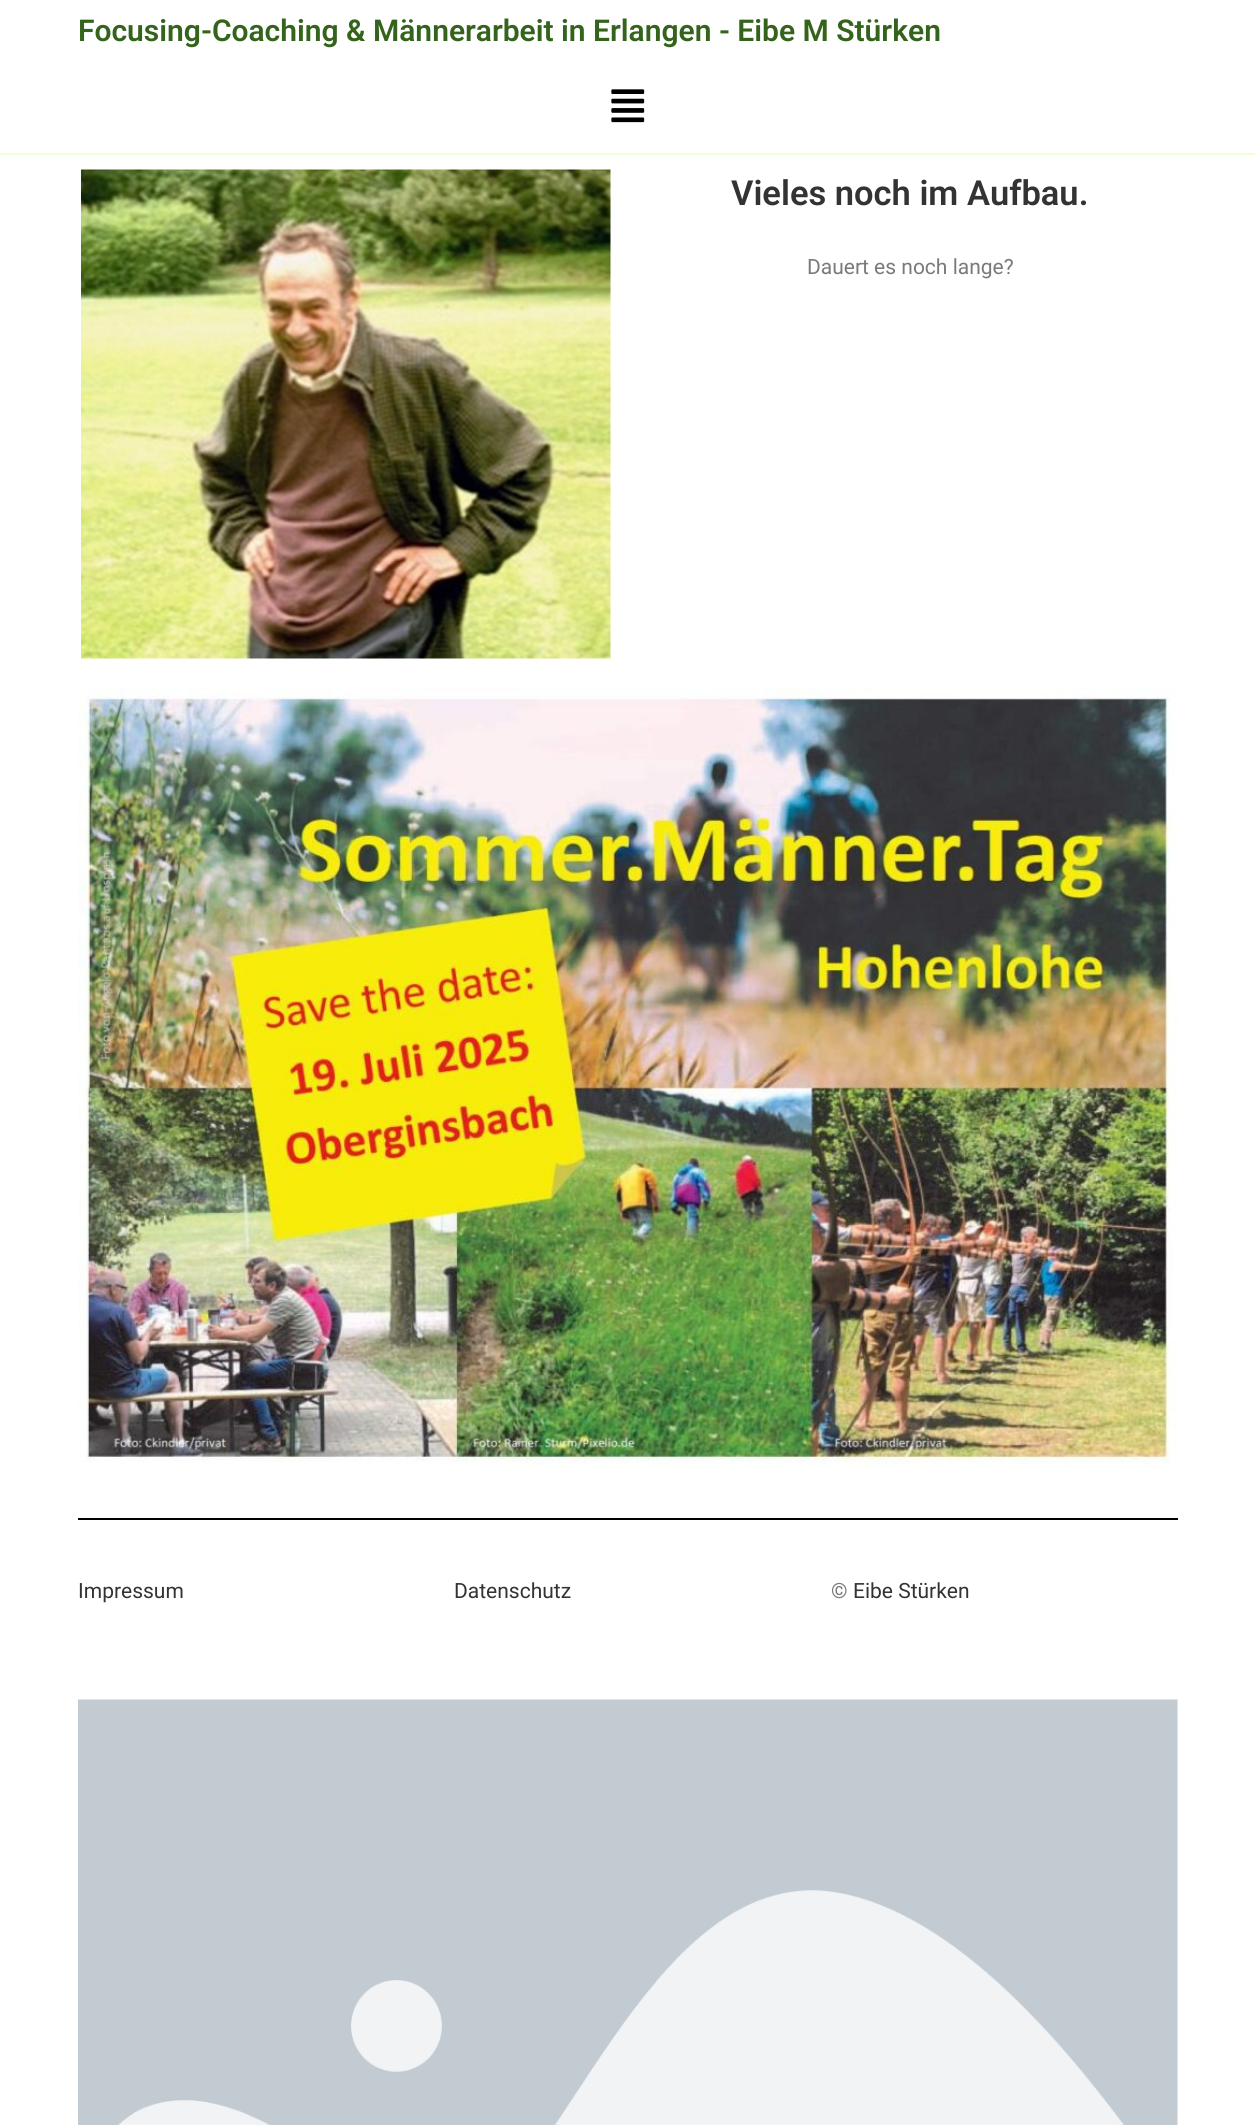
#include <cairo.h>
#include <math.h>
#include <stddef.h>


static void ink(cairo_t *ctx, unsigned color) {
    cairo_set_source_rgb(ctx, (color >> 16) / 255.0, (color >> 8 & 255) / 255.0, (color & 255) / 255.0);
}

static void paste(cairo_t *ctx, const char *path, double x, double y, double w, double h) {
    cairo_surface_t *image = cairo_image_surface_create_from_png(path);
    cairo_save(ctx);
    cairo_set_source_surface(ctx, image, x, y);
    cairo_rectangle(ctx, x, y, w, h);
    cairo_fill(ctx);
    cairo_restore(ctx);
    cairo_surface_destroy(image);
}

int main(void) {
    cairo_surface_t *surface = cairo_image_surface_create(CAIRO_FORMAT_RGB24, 1255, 2125);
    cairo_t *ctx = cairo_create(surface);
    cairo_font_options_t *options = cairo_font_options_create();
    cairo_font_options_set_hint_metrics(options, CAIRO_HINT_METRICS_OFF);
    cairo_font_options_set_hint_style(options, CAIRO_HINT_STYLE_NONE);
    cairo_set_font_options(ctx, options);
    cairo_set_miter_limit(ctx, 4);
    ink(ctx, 0xFFFFFF);
    cairo_paint(ctx);
    ink(ctx, 0xEDFFD4);
    cairo_rectangle(ctx, 0, 153, 1255, 2);
    cairo_fill(ctx);
    cairo_select_font_face(ctx, "Roboto SemiBold", CAIRO_FONT_SLANT_NORMAL, CAIRO_FONT_WEIGHT_NORMAL);
    cairo_set_font_size(ctx, 30);
    ink(ctx, 0x34631C);
    cairo_move_to(ctx, 78, 41);
    cairo_show_text(ctx, "Focusing-Coaching & Männerarbeit in Erlangen - Eibe M Stürken");
    paste(ctx, "media/1.png", 611, 89, 34, 34);
    paste(ctx, "media/2.png", 81, 169, 530, 490);
    cairo_set_font_size(ctx, 34.5);
    ink(ctx, 0x333333);
    cairo_move_to(ctx, 731, 205);
    cairo_show_text(ctx, "Vieles noch im Aufbau.");
    cairo_select_font_face(ctx, "Roboto", CAIRO_FONT_SLANT_NORMAL, CAIRO_FONT_WEIGHT_NORMAL);
    cairo_set_font_size(ctx, 21);
    ink(ctx, 0x7A7A7A);
    cairo_move_to(ctx, 807, 274);
    cairo_show_text(ctx, "Dauert es noch lange?");
    paste(ctx, "media/3.png", 78, 688, 1100, 778);
    ink(ctx, 0x000000);
    cairo_rectangle(ctx, 78, 1518, 1100, 2);
    cairo_fill(ctx);
    ink(ctx, 0x333333);
    cairo_move_to(ctx, 78, 1598);
    cairo_show_text(ctx, "Impressum");
    cairo_move_to(ctx, 454, 1598);
    cairo_show_text(ctx, "Datenschutz");
    ink(ctx, 0x7A7A7A);
    cairo_move_to(ctx, 831, 1598);
    cairo_show_text(ctx, "©");
    ink(ctx, 0x333333);
    cairo_move_to(ctx, 853, 1598);
    cairo_show_text(ctx, "Eibe Stürken");
    paste(ctx, "media/4.png", 78, 1699, 1100, 426);
    cairo_surface_write_to_png(surface, "image.png");
    cairo_font_options_destroy(options);
    cairo_destroy(ctx);
    cairo_surface_destroy(surface);
    return 0;
}
